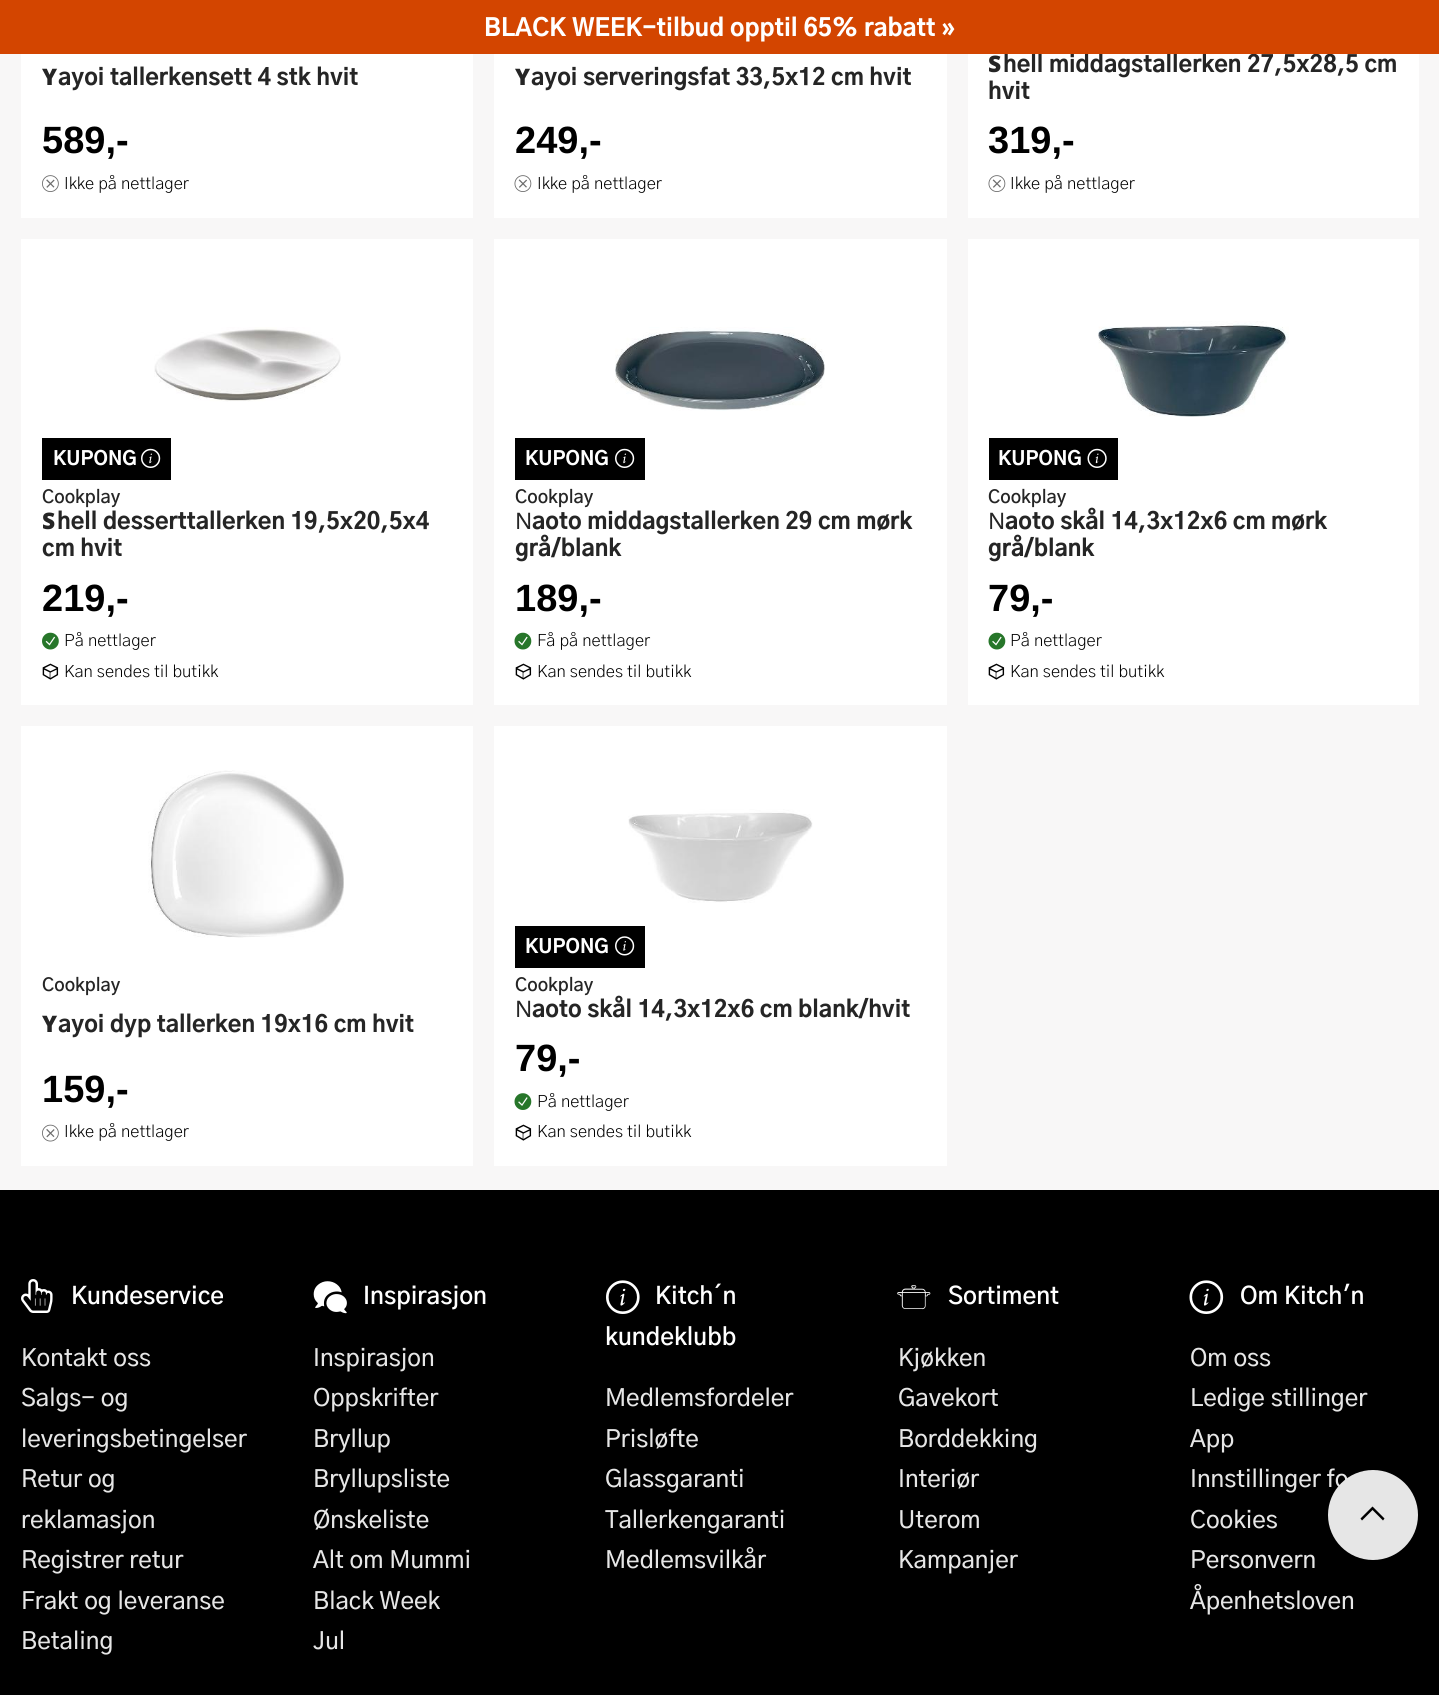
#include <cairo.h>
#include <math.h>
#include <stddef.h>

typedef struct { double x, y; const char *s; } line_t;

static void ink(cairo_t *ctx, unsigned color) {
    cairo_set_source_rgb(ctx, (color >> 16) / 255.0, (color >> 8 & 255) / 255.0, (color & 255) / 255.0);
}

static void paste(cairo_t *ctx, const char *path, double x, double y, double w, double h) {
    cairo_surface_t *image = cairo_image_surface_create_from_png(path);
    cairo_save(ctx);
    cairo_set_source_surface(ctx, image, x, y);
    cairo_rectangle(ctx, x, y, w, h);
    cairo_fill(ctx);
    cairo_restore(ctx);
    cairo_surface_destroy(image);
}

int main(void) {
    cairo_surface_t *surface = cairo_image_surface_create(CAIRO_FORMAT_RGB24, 1439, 1695);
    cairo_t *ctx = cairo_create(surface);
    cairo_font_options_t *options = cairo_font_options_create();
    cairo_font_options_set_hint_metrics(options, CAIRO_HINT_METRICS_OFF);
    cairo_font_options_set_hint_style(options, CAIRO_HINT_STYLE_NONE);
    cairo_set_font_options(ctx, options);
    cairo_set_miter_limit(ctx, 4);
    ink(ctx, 0xF8F7F7);
    cairo_paint(ctx);
    ink(ctx, 0xFFFFFF);
    cairo_rectangle(ctx, 968, 54, 451, 164);
    cairo_fill(ctx);
    cairo_select_font_face(ctx, "Gothic A1 ExtraBold", CAIRO_FONT_SLANT_NORMAL, CAIRO_FONT_WEIGHT_NORMAL);
    cairo_set_font_size(ctx, 22.75);
    ink(ctx, 0x252525);
    cairo_move_to(ctx, 1003, 72);
    cairo_show_text(ctx, "hell middagstallerken 27,5x28,5 cm");
    ink(ctx, 0xD34500);
    cairo_rectangle(ctx, 0, 0, 1439, 54);
    cairo_fill(ctx);
    cairo_set_font_size(ctx, 24);
    ink(ctx, 0xFFFFFF);
    cairo_move_to(ctx, 484, 36);
    cairo_show_text(ctx, "BLACK WEEK-tilbud opptil 65% rabatt »");
    cairo_rectangle(ctx, 21, 54, 452, 164);
    cairo_fill(ctx);
    cairo_select_font_face(ctx, "Noto Sans Black", CAIRO_FONT_SLANT_NORMAL, CAIRO_FONT_WEIGHT_NORMAL);
    cairo_set_font_size(ctx, 22.75);
    ink(ctx, 0x252525);
    cairo_move_to(ctx, 42, 85);
    cairo_show_text(ctx, "Y");
    cairo_select_font_face(ctx, "Gothic A1 ExtraBold", CAIRO_FONT_SLANT_NORMAL, CAIRO_FONT_WEIGHT_NORMAL);
    cairo_move_to(ctx, 58, 85);
    cairo_show_text(ctx, "ayoi tallerkensett 4 stk hvit");
    cairo_select_font_face(ctx, "Liberation Sans", CAIRO_FONT_SLANT_NORMAL, CAIRO_FONT_WEIGHT_BOLD);
    cairo_set_font_size(ctx, 38);
    ink(ctx, 0x000000);
    cairo_move_to(ctx, 42, 153);
    cairo_show_text(ctx, "589,-");
    paste(ctx, "media/1.png", 42, 175, 17, 17);
    cairo_select_font_face(ctx, "Gothic A1 Light", CAIRO_FONT_SLANT_NORMAL, CAIRO_FONT_WEIGHT_NORMAL);
    cairo_set_font_size(ctx, 16.75);
    cairo_move_to(ctx, 64, 189);
    cairo_show_text(ctx, "Ikke på nettlager");
    ink(ctx, 0xFFFFFF);
    cairo_rectangle(ctx, 494, 54, 453, 164);
    cairo_fill(ctx);
    cairo_select_font_face(ctx, "Noto Sans Black", CAIRO_FONT_SLANT_NORMAL, CAIRO_FONT_WEIGHT_NORMAL);
    cairo_set_font_size(ctx, 22.75);
    ink(ctx, 0x252525);
    cairo_move_to(ctx, 515, 85);
    cairo_show_text(ctx, "Y");
    cairo_select_font_face(ctx, "Gothic A1 ExtraBold", CAIRO_FONT_SLANT_NORMAL, CAIRO_FONT_WEIGHT_NORMAL);
    cairo_move_to(ctx, 531, 85);
    cairo_show_text(ctx, "ayoi serveringsfat 33,5x12 cm hvit");
    cairo_select_font_face(ctx, "Liberation Sans", CAIRO_FONT_SLANT_NORMAL, CAIRO_FONT_WEIGHT_BOLD);
    cairo_set_font_size(ctx, 38);
    ink(ctx, 0x000000);
    cairo_move_to(ctx, 515, 153);
    cairo_show_text(ctx, "249,-");
    paste(ctx, "media/2.png", 514, 175, 18, 17);
    cairo_select_font_face(ctx, "Gothic A1 Light", CAIRO_FONT_SLANT_NORMAL, CAIRO_FONT_WEIGHT_NORMAL);
    cairo_set_font_size(ctx, 16.75);
    cairo_move_to(ctx, 537, 189);
    cairo_show_text(ctx, "Ikke på nettlager");
    cairo_select_font_face(ctx, "Noto Sans Black", CAIRO_FONT_SLANT_NORMAL, CAIRO_FONT_WEIGHT_NORMAL);
    cairo_set_font_size(ctx, 22.75);
    ink(ctx, 0x252525);
    cairo_move_to(ctx, 988, 72);
    cairo_show_text(ctx, "S");
    cairo_select_font_face(ctx, "Gothic A1 ExtraBold", CAIRO_FONT_SLANT_NORMAL, CAIRO_FONT_WEIGHT_NORMAL);
    cairo_move_to(ctx, 988, 99);
    cairo_show_text(ctx, "hvit");
    cairo_select_font_face(ctx, "Liberation Sans", CAIRO_FONT_SLANT_NORMAL, CAIRO_FONT_WEIGHT_BOLD);
    cairo_set_font_size(ctx, 38);
    ink(ctx, 0x000000);
    cairo_move_to(ctx, 988, 153);
    cairo_show_text(ctx, "319,-");
    paste(ctx, "media/2.png", 988, 175, 18, 17);
    cairo_select_font_face(ctx, "Gothic A1 Light", CAIRO_FONT_SLANT_NORMAL, CAIRO_FONT_WEIGHT_NORMAL);
    cairo_set_font_size(ctx, 16.75);
    cairo_move_to(ctx, 1010, 189);
    cairo_show_text(ctx, "Ikke på nettlager");
    ink(ctx, 0xFFFFFF);
    cairo_rectangle(ctx, 21, 239, 452, 466);
    cairo_fill(ctx);
    paste(ctx, "media/3.png", 154, 327, 187, 75);
    ink(ctx, 0x000000);
    cairo_rectangle(ctx, 42, 438, 129, 42);
    cairo_fill(ctx);
    cairo_select_font_face(ctx, "Gothic A1 ExtraBold", CAIRO_FONT_SLANT_NORMAL, CAIRO_FONT_WEIGHT_NORMAL);
    cairo_set_font_size(ctx, 19);
    ink(ctx, 0xFFFFFF);
    cairo_move_to(ctx, 53, 465);
    cairo_show_text(ctx, "KUPONG");
    paste(ctx, "media/4.png", 141, 448, 20, 20);
    cairo_select_font_face(ctx, "Gothic A1 SemiBold", CAIRO_FONT_SLANT_NORMAL, CAIRO_FONT_WEIGHT_NORMAL);
    cairo_set_font_size(ctx, 18);
    ink(ctx, 0x252525);
    cairo_move_to(ctx, 42, 503);
    cairo_show_text(ctx, "Cookplay");
    cairo_select_font_face(ctx, "Noto Sans Black", CAIRO_FONT_SLANT_NORMAL, CAIRO_FONT_WEIGHT_NORMAL);
    cairo_set_font_size(ctx, 22.75);
    cairo_move_to(ctx, 42, 529);
    cairo_show_text(ctx, "S");
    cairo_select_font_face(ctx, "Gothic A1 ExtraBold", CAIRO_FONT_SLANT_NORMAL, CAIRO_FONT_WEIGHT_NORMAL);
    cairo_move_to(ctx, 57, 529);
    cairo_show_text(ctx, "hell desserttallerken 19,5x20,5x4");
    cairo_move_to(ctx, 42, 556);
    cairo_show_text(ctx, "cm hvit");
    cairo_select_font_face(ctx, "Liberation Sans", CAIRO_FONT_SLANT_NORMAL, CAIRO_FONT_WEIGHT_BOLD);
    cairo_set_font_size(ctx, 38);
    ink(ctx, 0x000000);
    cairo_move_to(ctx, 42, 611);
    cairo_show_text(ctx, "219,-");
    paste(ctx, "media/5.png", 42, 632, 17, 18);
    cairo_select_font_face(ctx, "Gothic A1 Light", CAIRO_FONT_SLANT_NORMAL, CAIRO_FONT_WEIGHT_NORMAL);
    cairo_set_font_size(ctx, 16.75);
    cairo_move_to(ctx, 64, 646);
    cairo_show_text(ctx, "På nettlager");
    cairo_select_font_face(ctx, "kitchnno", CAIRO_FONT_SLANT_NORMAL, CAIRO_FONT_WEIGHT_NORMAL);
    cairo_move_to(ctx, 42, 680);
    cairo_show_text(ctx, ";");
    cairo_select_font_face(ctx, "Gothic A1 Light", CAIRO_FONT_SLANT_NORMAL, CAIRO_FONT_WEIGHT_NORMAL);
    cairo_move_to(ctx, 64, 677);
    cairo_show_text(ctx, "Kan sendes til butikk");
    ink(ctx, 0xFFFFFF);
    cairo_rectangle(ctx, 494, 239, 453, 466);
    cairo_fill(ctx);
    paste(ctx, "media/6.png", 615, 327, 210, 84);
    ink(ctx, 0x000000);
    cairo_rectangle(ctx, 515, 438, 130, 42);
    cairo_fill(ctx);
    cairo_select_font_face(ctx, "Gothic A1 ExtraBold", CAIRO_FONT_SLANT_NORMAL, CAIRO_FONT_WEIGHT_NORMAL);
    cairo_set_font_size(ctx, 19);
    ink(ctx, 0xFFFFFF);
    cairo_move_to(ctx, 525, 465);
    cairo_show_text(ctx, "KUPONG");
    paste(ctx, "media/4.png", 615, 448, 20, 20);
    cairo_select_font_face(ctx, "Gothic A1 SemiBold", CAIRO_FONT_SLANT_NORMAL, CAIRO_FONT_WEIGHT_NORMAL);
    cairo_set_font_size(ctx, 18);
    ink(ctx, 0x252525);
    cairo_move_to(ctx, 515, 503);
    cairo_show_text(ctx, "Cookplay");
    cairo_select_font_face(ctx, "Noto Sans", CAIRO_FONT_SLANT_NORMAL, CAIRO_FONT_WEIGHT_NORMAL);
    cairo_set_font_size(ctx, 22.75);
    cairo_move_to(ctx, 515, 529);
    cairo_show_text(ctx, "N");
    cairo_select_font_face(ctx, "Gothic A1 ExtraBold", CAIRO_FONT_SLANT_NORMAL, CAIRO_FONT_WEIGHT_NORMAL);
    cairo_move_to(ctx, 532, 529);
    cairo_show_text(ctx, "aoto middagstallerken 29 cm mørk");
    cairo_move_to(ctx, 515, 556);
    cairo_show_text(ctx, "grå/blank");
    cairo_select_font_face(ctx, "Liberation Sans", CAIRO_FONT_SLANT_NORMAL, CAIRO_FONT_WEIGHT_BOLD);
    cairo_set_font_size(ctx, 38);
    ink(ctx, 0x000000);
    cairo_move_to(ctx, 515, 611);
    cairo_show_text(ctx, "189,-");
    paste(ctx, "media/7.png", 514, 632, 18, 18);
    cairo_select_font_face(ctx, "Gothic A1 Light", CAIRO_FONT_SLANT_NORMAL, CAIRO_FONT_WEIGHT_NORMAL);
    cairo_set_font_size(ctx, 16.75);
    cairo_move_to(ctx, 537, 646);
    cairo_show_text(ctx, "Få på nettlager");
    cairo_select_font_face(ctx, "kitchnno", CAIRO_FONT_SLANT_NORMAL, CAIRO_FONT_WEIGHT_NORMAL);
    cairo_move_to(ctx, 515, 680);
    cairo_show_text(ctx, ";");
    cairo_select_font_face(ctx, "Gothic A1 Light", CAIRO_FONT_SLANT_NORMAL, CAIRO_FONT_WEIGHT_NORMAL);
    cairo_move_to(ctx, 537, 677);
    cairo_show_text(ctx, "Kan sendes til butikk");
    ink(ctx, 0xFFFFFF);
    cairo_rectangle(ctx, 968, 239, 451, 466);
    cairo_fill(ctx);
    paste(ctx, "media/8.png", 1098, 321, 191, 96);
    ink(ctx, 0x000000);
    cairo_rectangle(ctx, 989, 438, 129, 42);
    cairo_fill(ctx);
    cairo_select_font_face(ctx, "Gothic A1 ExtraBold", CAIRO_FONT_SLANT_NORMAL, CAIRO_FONT_WEIGHT_NORMAL);
    cairo_set_font_size(ctx, 19);
    ink(ctx, 0xFFFFFF);
    cairo_move_to(ctx, 998, 465);
    cairo_show_text(ctx, "KUPONG");
    paste(ctx, "media/9.png", 1087, 448, 20, 20);
    cairo_select_font_face(ctx, "Gothic A1 SemiBold", CAIRO_FONT_SLANT_NORMAL, CAIRO_FONT_WEIGHT_NORMAL);
    cairo_set_font_size(ctx, 18);
    ink(ctx, 0x252525);
    cairo_move_to(ctx, 988, 503);
    cairo_show_text(ctx, "Cookplay");
    cairo_select_font_face(ctx, "Noto Sans", CAIRO_FONT_SLANT_NORMAL, CAIRO_FONT_WEIGHT_NORMAL);
    cairo_set_font_size(ctx, 22.75);
    cairo_move_to(ctx, 988, 529);
    cairo_show_text(ctx, "N");
    cairo_select_font_face(ctx, "Gothic A1 ExtraBold", CAIRO_FONT_SLANT_NORMAL, CAIRO_FONT_WEIGHT_NORMAL);
    cairo_move_to(ctx, 1005, 529);
    cairo_show_text(ctx, "aoto skål 14,3x12x6 cm mørk");
    cairo_move_to(ctx, 988, 556);
    cairo_show_text(ctx, "grå/blank");
    cairo_select_font_face(ctx, "Liberation Sans", CAIRO_FONT_SLANT_NORMAL, CAIRO_FONT_WEIGHT_BOLD);
    cairo_set_font_size(ctx, 38);
    ink(ctx, 0x000000);
    cairo_move_to(ctx, 988, 611);
    cairo_show_text(ctx, "79,-");
    paste(ctx, "media/7.png", 988, 632, 18, 18);
    cairo_select_font_face(ctx, "Gothic A1 Light", CAIRO_FONT_SLANT_NORMAL, CAIRO_FONT_WEIGHT_NORMAL);
    cairo_set_font_size(ctx, 16.75);
    cairo_move_to(ctx, 1010, 646);
    cairo_show_text(ctx, "På nettlager");
    cairo_select_font_face(ctx, "kitchnno", CAIRO_FONT_SLANT_NORMAL, CAIRO_FONT_WEIGHT_NORMAL);
    cairo_move_to(ctx, 988, 680);
    cairo_show_text(ctx, ";");
    cairo_select_font_face(ctx, "Gothic A1 Light", CAIRO_FONT_SLANT_NORMAL, CAIRO_FONT_WEIGHT_NORMAL);
    cairo_move_to(ctx, 1010, 677);
    cairo_show_text(ctx, "Kan sendes til butikk");
    ink(ctx, 0xFFFFFF);
    cairo_rectangle(ctx, 21, 726, 452, 440);
    cairo_fill(ctx);
    paste(ctx, "media/10.png", 148, 770, 196, 168);
    cairo_select_font_face(ctx, "Gothic A1 SemiBold", CAIRO_FONT_SLANT_NORMAL, CAIRO_FONT_WEIGHT_NORMAL);
    cairo_set_font_size(ctx, 18);
    ink(ctx, 0x252525);
    cairo_move_to(ctx, 42, 991);
    cairo_show_text(ctx, "Cookplay");
    cairo_select_font_face(ctx, "Noto Sans Black", CAIRO_FONT_SLANT_NORMAL, CAIRO_FONT_WEIGHT_NORMAL);
    cairo_set_font_size(ctx, 22.75);
    cairo_move_to(ctx, 42, 1032);
    cairo_show_text(ctx, "Y");
    cairo_select_font_face(ctx, "Gothic A1 ExtraBold", CAIRO_FONT_SLANT_NORMAL, CAIRO_FONT_WEIGHT_NORMAL);
    cairo_move_to(ctx, 58, 1032);
    cairo_show_text(ctx, "ayoi dyp tallerken 19x16 cm hvit");
    cairo_select_font_face(ctx, "Liberation Sans", CAIRO_FONT_SLANT_NORMAL, CAIRO_FONT_WEIGHT_BOLD);
    cairo_set_font_size(ctx, 38);
    ink(ctx, 0x000000);
    cairo_move_to(ctx, 42, 1102);
    cairo_show_text(ctx, "159,-");
    paste(ctx, "media/11.png", 42, 1124, 17, 18);
    cairo_select_font_face(ctx, "Gothic A1 Light", CAIRO_FONT_SLANT_NORMAL, CAIRO_FONT_WEIGHT_NORMAL);
    cairo_set_font_size(ctx, 16.75);
    cairo_move_to(ctx, 64, 1137);
    cairo_show_text(ctx, "Ikke på nettlager");
    ink(ctx, 0xFFFFFF);
    cairo_rectangle(ctx, 494, 726, 453, 440);
    cairo_fill(ctx);
    paste(ctx, "media/12.png", 628, 809, 185, 94);
    ink(ctx, 0x000000);
    cairo_rectangle(ctx, 515, 926, 130, 42);
    cairo_fill(ctx);
    cairo_select_font_face(ctx, "Gothic A1 ExtraBold", CAIRO_FONT_SLANT_NORMAL, CAIRO_FONT_WEIGHT_NORMAL);
    cairo_set_font_size(ctx, 19);
    ink(ctx, 0xFFFFFF);
    cairo_move_to(ctx, 525, 953);
    cairo_show_text(ctx, "KUPONG");
    paste(ctx, "media/13.png", 615, 936, 20, 20);
    cairo_select_font_face(ctx, "Gothic A1 SemiBold", CAIRO_FONT_SLANT_NORMAL, CAIRO_FONT_WEIGHT_NORMAL);
    cairo_set_font_size(ctx, 18);
    ink(ctx, 0x252525);
    cairo_move_to(ctx, 515, 991);
    cairo_show_text(ctx, "Cookplay");
    cairo_select_font_face(ctx, "Noto Sans", CAIRO_FONT_SLANT_NORMAL, CAIRO_FONT_WEIGHT_NORMAL);
    cairo_set_font_size(ctx, 22.75);
    cairo_move_to(ctx, 515, 1017);
    cairo_show_text(ctx, "N");
    cairo_select_font_face(ctx, "Gothic A1 ExtraBold", CAIRO_FONT_SLANT_NORMAL, CAIRO_FONT_WEIGHT_NORMAL);
    cairo_move_to(ctx, 532, 1017);
    cairo_show_text(ctx, "aoto skål 14,3x12x6 cm blank/hvit");
    cairo_select_font_face(ctx, "Liberation Sans", CAIRO_FONT_SLANT_NORMAL, CAIRO_FONT_WEIGHT_BOLD);
    cairo_set_font_size(ctx, 38);
    ink(ctx, 0x000000);
    cairo_move_to(ctx, 515, 1071);
    cairo_show_text(ctx, "79,-");
    paste(ctx, "media/14.png", 514, 1093, 18, 17);
    cairo_select_font_face(ctx, "Gothic A1 Light", CAIRO_FONT_SLANT_NORMAL, CAIRO_FONT_WEIGHT_NORMAL);
    cairo_set_font_size(ctx, 16.75);
    cairo_move_to(ctx, 537, 1107);
    cairo_show_text(ctx, "På nettlager");
    cairo_select_font_face(ctx, "kitchnno", CAIRO_FONT_SLANT_NORMAL, CAIRO_FONT_WEIGHT_NORMAL);
    cairo_move_to(ctx, 515, 1141);
    cairo_show_text(ctx, ";");
    cairo_select_font_face(ctx, "Gothic A1 Light", CAIRO_FONT_SLANT_NORMAL, CAIRO_FONT_WEIGHT_NORMAL);
    cairo_move_to(ctx, 537, 1137);
    cairo_show_text(ctx, "Kan sendes til butikk");
    cairo_rectangle(ctx, 0, 1190, 1439, 505);
    cairo_fill(ctx);
    cairo_select_font_face(ctx, "kitchnno", CAIRO_FONT_SLANT_NORMAL, CAIRO_FONT_WEIGHT_NORMAL);
    cairo_set_font_size(ctx, 34);
    ink(ctx, 0xFFFFFF);
    cairo_move_to(ctx, 21, 1313);
    cairo_show_text(ctx, ">");
    cairo_select_font_face(ctx, "Gothic A1 SemiBold", CAIRO_FONT_SLANT_NORMAL, CAIRO_FONT_WEIGHT_NORMAL);
    cairo_set_font_size(ctx, 24);
    cairo_move_to(ctx, 71, 1304);
    cairo_show_text(ctx, "Kundeservice");
    cairo_select_font_face(ctx, "Gothic A1 Medium", CAIRO_FONT_SLANT_NORMAL, CAIRO_FONT_WEIGHT_NORMAL);
    ink(ctx, 0xE6E6E6);
    {
        static const line_t items[] = {
            {21, 1366, "Kontakt oss"},
            {21, 1406, "Salgs- og"},
            {21, 1447, "leveringsbetingelser"},
            {21, 1487, "Retur og"},
            {21, 1528, "reklamasjon"},
            {21, 1568, "Registrer retur"},
            {21, 1609, "Frakt og leveranse"},
            {21, 1649, "Betaling"},
        };
        for (size_t i = 0; i < sizeof items / sizeof *items; i++) {
            cairo_move_to(ctx, items[i].x, items[i].y);
            cairo_show_text(ctx, items[i].s);
        }
    }
    paste(ctx, "media/15.png", 313, 1281, 34, 33);
    cairo_select_font_face(ctx, "Gothic A1 SemiBold", CAIRO_FONT_SLANT_NORMAL, CAIRO_FONT_WEIGHT_NORMAL);
    ink(ctx, 0xFFFFFF);
    cairo_move_to(ctx, 363, 1304);
    cairo_show_text(ctx, "Inspirasjon");
    cairo_select_font_face(ctx, "Gothic A1 Medium", CAIRO_FONT_SLANT_NORMAL, CAIRO_FONT_WEIGHT_NORMAL);
    ink(ctx, 0xE6E6E6);
    {
        static const line_t items[] = {
            {313, 1366, "Inspirasjon"},
            {313, 1406, "Oppskrifter"},
            {313, 1447, "Bryllup"},
            {313, 1487, "Bryllupsliste"},
            {313, 1528, "Ønskeliste"},
            {313, 1568, "Alt om Mummi"},
            {313, 1609, "Black Week"},
            {313, 1649, "Jul"},
        };
        for (size_t i = 0; i < sizeof items / sizeof *items; i++) {
            cairo_move_to(ctx, items[i].x, items[i].y);
            cairo_show_text(ctx, items[i].s);
        }
    }
    paste(ctx, "media/16.png", 606, 1280, 34, 34);
    cairo_select_font_face(ctx, "Gothic A1 SemiBold", CAIRO_FONT_SLANT_NORMAL, CAIRO_FONT_WEIGHT_NORMAL);
    ink(ctx, 0xFFFFFF);
    cairo_move_to(ctx, 655, 1304);
    cairo_show_text(ctx, "Kitch´n");
    cairo_move_to(ctx, 605, 1345);
    cairo_show_text(ctx, "kundeklubb");
    cairo_select_font_face(ctx, "Gothic A1 Medium", CAIRO_FONT_SLANT_NORMAL, CAIRO_FONT_WEIGHT_NORMAL);
    ink(ctx, 0xE6E6E6);
    {
        static const line_t items[] = {
            {605, 1406, "Medlemsfordeler"},
            {605, 1447, "Prisløfte"},
            {605, 1487, "Glassgaranti"},
            {605, 1528, "Tallerkengaranti"},
            {605, 1568, "Medlemsvilkår"},
        };
        for (size_t i = 0; i < sizeof items / sizeof *items; i++) {
            cairo_move_to(ctx, items[i].x, items[i].y);
            cairo_show_text(ctx, items[i].s);
        }
    }
    paste(ctx, "media/17.png", 897, 1285, 34, 25);
    cairo_select_font_face(ctx, "Gothic A1 SemiBold", CAIRO_FONT_SLANT_NORMAL, CAIRO_FONT_WEIGHT_NORMAL);
    ink(ctx, 0xFFFFFF);
    cairo_move_to(ctx, 948, 1304);
    cairo_show_text(ctx, "Sortiment");
    cairo_select_font_face(ctx, "Gothic A1 Medium", CAIRO_FONT_SLANT_NORMAL, CAIRO_FONT_WEIGHT_NORMAL);
    ink(ctx, 0xE6E6E6);
    {
        static const line_t items[] = {
            {898, 1366, "Kjøkken"},
            {898, 1406, "Gavekort"},
            {898, 1447, "Borddekking"},
            {898, 1487, "Interiør"},
            {898, 1528, "Uterom"},
            {898, 1568, "Kampanjer"},
        };
        for (size_t i = 0; i < sizeof items / sizeof *items; i++) {
            cairo_move_to(ctx, items[i].x, items[i].y);
            cairo_show_text(ctx, items[i].s);
        }
    }
    paste(ctx, "media/18.png", 1189, 1280, 35, 34);
    cairo_select_font_face(ctx, "Gothic A1 SemiBold", CAIRO_FONT_SLANT_NORMAL, CAIRO_FONT_WEIGHT_NORMAL);
    ink(ctx, 0xFFFFFF);
    cairo_move_to(ctx, 1240, 1304);
    cairo_show_text(ctx, "Om Kitch'n");
    cairo_select_font_face(ctx, "Gothic A1 Medium", CAIRO_FONT_SLANT_NORMAL, CAIRO_FONT_WEIGHT_NORMAL);
    ink(ctx, 0xE6E6E6);
    {
        static const line_t items[] = {
            {1190, 1366, "Om oss"},
            {1190, 1406, "Ledige stillinger"},
            {1190, 1447, "App"},
            {1190, 1487, "Innstillinger fo"},
            {1190, 1528, "Cookies"},
            {1190, 1568, "Personvern"},
            {1190, 1609, "Åpenhetsloven"},
        };
        for (size_t i = 0; i < sizeof items / sizeof *items; i++) {
            cairo_move_to(ctx, items[i].x, items[i].y);
            cairo_show_text(ctx, items[i].s);
        }
    }
    cairo_new_path(ctx);
    cairo_arc(ctx, 1373, 1515, 45, 0, 2 * M_PI);
    cairo_fill(ctx);
    ink(ctx, 0x000000);
    cairo_new_path(ctx);
    cairo_move_to(ctx, 1372.5, 1506.5);
    cairo_line_to(ctx, 1360.5, 1518.5);
    cairo_line_to(ctx, 1362, 1520.5);
    cairo_line_to(ctx, 1372.5, 1510);
    cairo_line_to(ctx, 1383, 1520.5);
    cairo_line_to(ctx, 1384.5, 1518.5);
    cairo_close_path(ctx);
    cairo_fill(ctx);
    cairo_surface_write_to_png(surface, "image.png");
    cairo_font_options_destroy(options);
    cairo_destroy(ctx);
    cairo_surface_destroy(surface);
    return 0;
}
